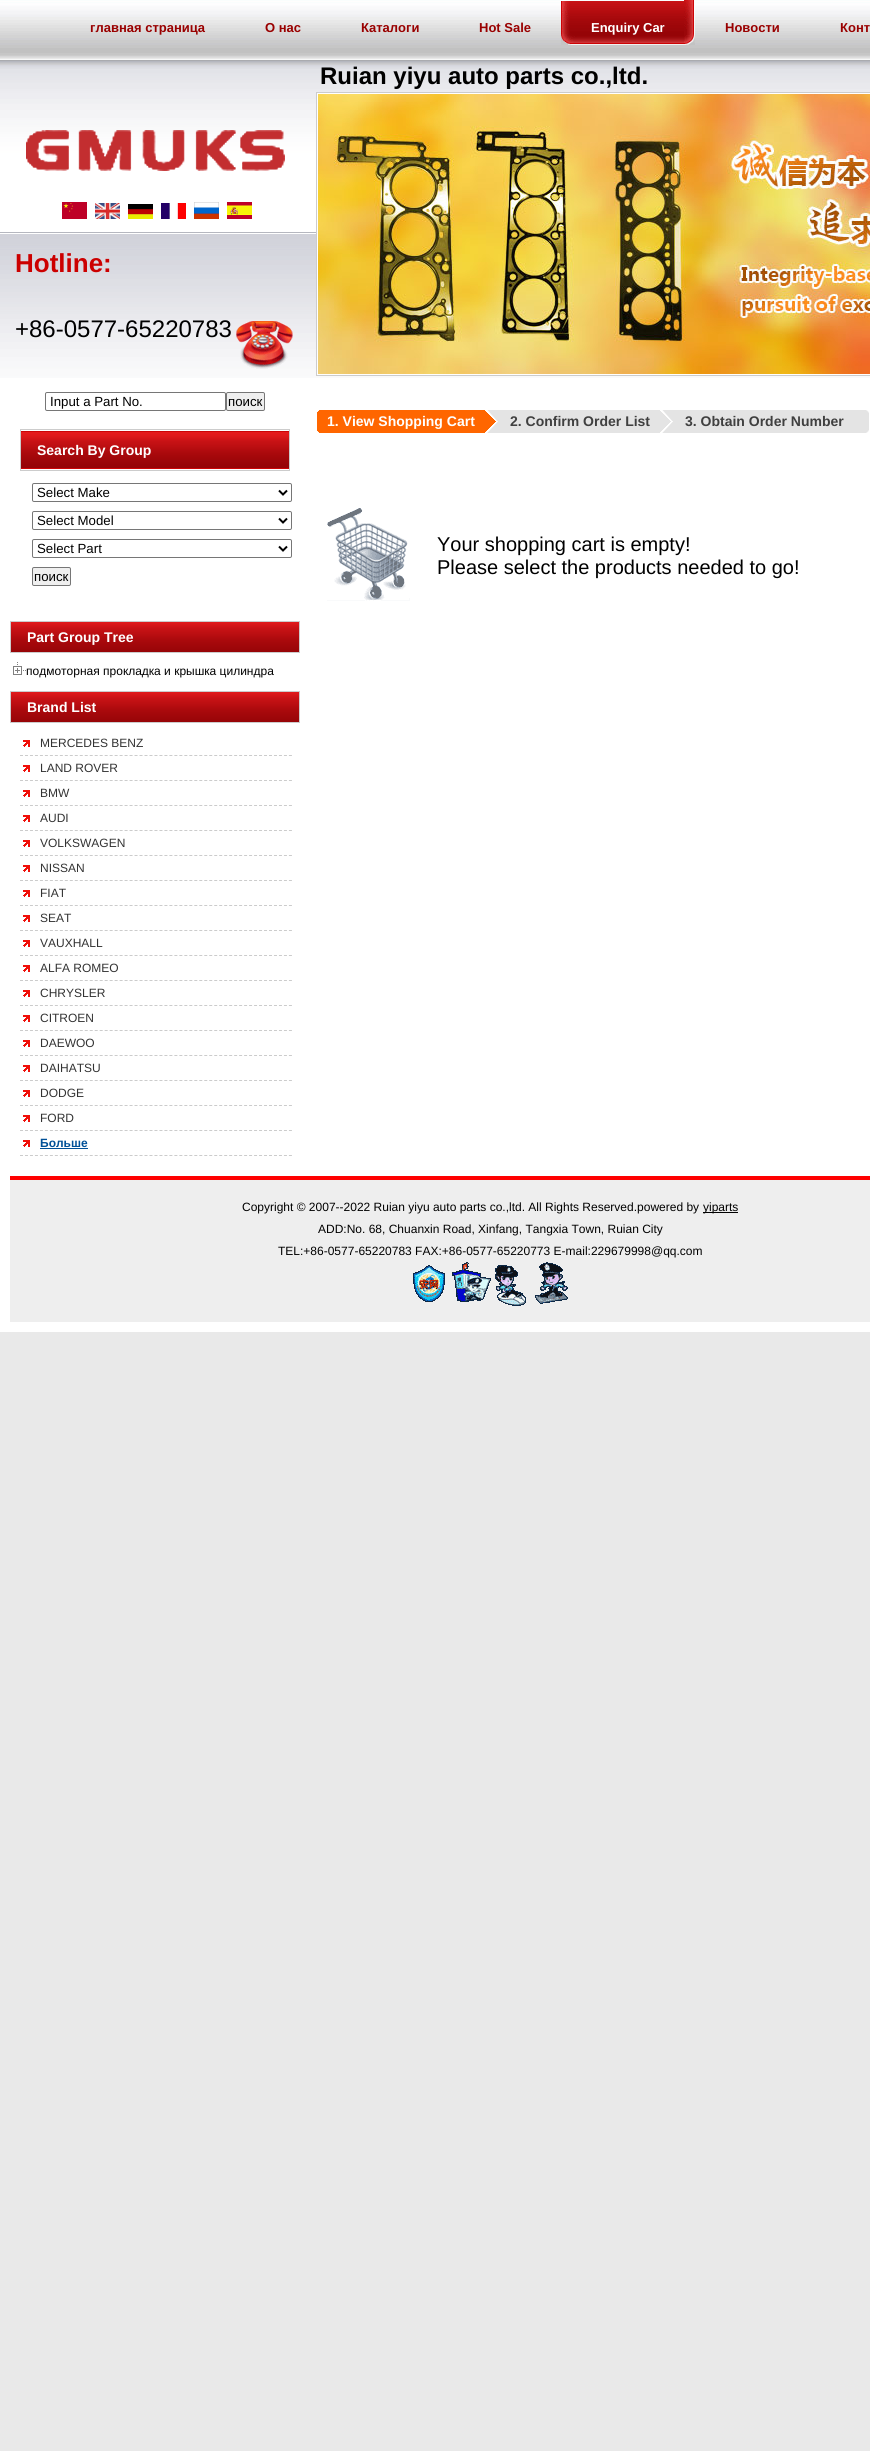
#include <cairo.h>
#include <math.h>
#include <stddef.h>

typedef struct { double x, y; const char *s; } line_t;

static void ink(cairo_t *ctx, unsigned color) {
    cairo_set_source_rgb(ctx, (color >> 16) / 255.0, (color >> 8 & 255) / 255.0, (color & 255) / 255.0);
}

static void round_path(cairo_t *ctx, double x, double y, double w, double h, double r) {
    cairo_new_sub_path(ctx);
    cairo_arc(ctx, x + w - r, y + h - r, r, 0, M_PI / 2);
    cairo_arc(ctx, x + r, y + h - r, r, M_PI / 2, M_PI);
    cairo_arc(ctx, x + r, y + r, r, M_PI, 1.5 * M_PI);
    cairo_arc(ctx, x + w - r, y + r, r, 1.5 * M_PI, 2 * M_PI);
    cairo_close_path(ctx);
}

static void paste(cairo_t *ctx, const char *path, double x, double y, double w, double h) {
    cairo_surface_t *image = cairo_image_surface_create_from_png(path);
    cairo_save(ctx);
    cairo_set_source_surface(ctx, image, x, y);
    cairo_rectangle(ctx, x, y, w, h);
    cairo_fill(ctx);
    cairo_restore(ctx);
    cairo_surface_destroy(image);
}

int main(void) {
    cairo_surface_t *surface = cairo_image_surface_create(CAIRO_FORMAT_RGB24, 870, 2451);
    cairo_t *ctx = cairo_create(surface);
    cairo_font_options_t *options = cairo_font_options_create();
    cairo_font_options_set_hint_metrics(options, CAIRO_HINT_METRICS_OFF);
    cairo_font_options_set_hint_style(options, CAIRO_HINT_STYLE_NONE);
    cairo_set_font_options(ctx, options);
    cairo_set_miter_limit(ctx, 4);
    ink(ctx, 0xE9E9E9);
    cairo_paint(ctx);
    ink(ctx, 0xFFFFFF);
    cairo_rectangle(ctx, 0, 378, 870, 954);
    cairo_fill(ctx);
    paste(ctx, "media/1.png", 0, 0, 870, 378);
    cairo_select_font_face(ctx, "Liberation Sans", CAIRO_FONT_SLANT_NORMAL, CAIRO_FONT_WEIGHT_BOLD);
    cairo_set_font_size(ctx, 13);
    ink(ctx, 0x990000);
    cairo_move_to(ctx, 265, 32);
    cairo_show_text(ctx, "О нас");
    cairo_move_to(ctx, 479, 32);
    cairo_show_text(ctx, "Hot Sale");
    paste(ctx, "media/2.png", 561, 1, 123, 44);
    paste(ctx, "media/3.png", 684, 0, 11, 45);
    cairo_move_to(ctx, 90, 32);
    cairo_show_text(ctx, "главная страница");
    cairo_move_to(ctx, 361, 32);
    cairo_show_text(ctx, "Каталоги");
    ink(ctx, 0xFFFFFF);
    cairo_move_to(ctx, 591, 32);
    cairo_show_text(ctx, "Enquiry Car");
    ink(ctx, 0x990000);
    cairo_move_to(ctx, 725, 32);
    cairo_show_text(ctx, "Новости");
    cairo_move_to(ctx, 840, 32);
    cairo_show_text(ctx, "Конт");
    cairo_set_font_size(ctx, 24);
    ink(ctx, 0x000000);
    cairo_move_to(ctx, 320, 84);
    cairo_show_text(ctx, "Ruian yiyu auto parts co.,ltd.");
    paste(ctx, "media/4.png", 26, 130, 259, 41);
    ink(ctx, 0xFFFFFF);
    cairo_rectangle(ctx, 316.5, 92.5, 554, 283);
    cairo_fill_preserve(ctx);
    ink(ctx, 0xCCCCCC);
    cairo_set_line_width(ctx, 1);
    cairo_stroke(ctx);
    paste(ctx, "media/5.png", 318, 94, 552, 280);
    paste(ctx, "media/6.png", 62, 202, 25, 17);
    paste(ctx, "media/7.png", 95, 203, 25, 16);
    paste(ctx, "media/8.png", 128, 204, 25, 15);
    paste(ctx, "media/9.png", 161, 203, 25, 16);
    paste(ctx, "media/10.png", 194, 202, 25, 17);
    paste(ctx, "media/11.png", 227, 202, 25, 17);
    paste(ctx, "media/12.png", 236, 321, 57, 48);
    cairo_set_font_size(ctx, 26);
    ink(ctx, 0xCC0000);
    cairo_move_to(ctx, 15, 272);
    cairo_show_text(ctx, "Hotline:");
    cairo_select_font_face(ctx, "Liberation Sans", CAIRO_FONT_SLANT_NORMAL, CAIRO_FONT_WEIGHT_NORMAL);
    cairo_set_font_size(ctx, 24);
    ink(ctx, 0x000000);
    cairo_move_to(ctx, 15, 337);
    cairo_show_text(ctx, "+86-0577-65220783");
    round_path(ctx, 45.5, 392.5, 180, 18, 1.5);
    ink(ctx, 0x767676);
    cairo_stroke(ctx);
    cairo_set_font_size(ctx, 13.25);
    ink(ctx, 0x000000);
    cairo_move_to(ctx, 50, 406);
    cairo_show_text(ctx, "Input a Part No.");
    ink(ctx, 0xEFEFEF);
    round_path(ctx, 226.5, 392.5, 38, 18, 1.5);
    cairo_fill_preserve(ctx);
    ink(ctx, 0x767676);
    cairo_stroke(ctx);
    ink(ctx, 0x000000);
    cairo_move_to(ctx, 228, 406);
    cairo_show_text(ctx, "поиск");
    paste(ctx, "media/13.png", 21, 431, 268, 38);
    cairo_rectangle(ctx, 20.5, 429.5, 269, 41);
    ink(ctx, 0xCCCCCC);
    cairo_stroke(ctx);
    cairo_select_font_face(ctx, "Liberation Sans", CAIRO_FONT_SLANT_NORMAL, CAIRO_FONT_WEIGHT_BOLD);
    cairo_set_font_size(ctx, 14);
    ink(ctx, 0xFFFFFF);
    cairo_move_to(ctx, 37, 455);
    cairo_show_text(ctx, "Search By Group");
    round_path(ctx, 32.5, 483.5, 259, 18, 1.5);
    ink(ctx, 0x767676);
    cairo_stroke(ctx);
    cairo_new_path(ctx);
    cairo_move_to(ctx, 279, 490.5);
    cairo_line_to(ctx, 283, 494.5);
    cairo_line_to(ctx, 287, 490.5);
    ink(ctx, 0x000000);
    cairo_set_line_width(ctx, 2);
    cairo_stroke(ctx);
    cairo_select_font_face(ctx, "Liberation Sans", CAIRO_FONT_SLANT_NORMAL, CAIRO_FONT_WEIGHT_NORMAL);
    cairo_set_font_size(ctx, 13.25);
    cairo_move_to(ctx, 37, 497);
    cairo_show_text(ctx, "Select Make");
    round_path(ctx, 32.5, 511.5, 259, 18, 1.5);
    ink(ctx, 0x767676);
    cairo_set_line_width(ctx, 1);
    cairo_stroke(ctx);
    cairo_new_path(ctx);
    cairo_move_to(ctx, 279, 518.5);
    cairo_line_to(ctx, 283, 522.5);
    cairo_line_to(ctx, 287, 518.5);
    ink(ctx, 0x000000);
    cairo_set_line_width(ctx, 2);
    cairo_stroke(ctx);
    cairo_move_to(ctx, 37, 525);
    cairo_show_text(ctx, "Select Model");
    round_path(ctx, 32.5, 539.5, 259, 18, 1.5);
    ink(ctx, 0x767676);
    cairo_set_line_width(ctx, 1);
    cairo_stroke(ctx);
    cairo_new_path(ctx);
    cairo_move_to(ctx, 279, 546.5);
    cairo_line_to(ctx, 283, 550.5);
    cairo_line_to(ctx, 287, 546.5);
    ink(ctx, 0x000000);
    cairo_set_line_width(ctx, 2);
    cairo_stroke(ctx);
    cairo_move_to(ctx, 37, 553);
    cairo_show_text(ctx, "Select Part");
    ink(ctx, 0xEFEFEF);
    round_path(ctx, 32.5, 567.5, 38, 18, 1.5);
    cairo_fill_preserve(ctx);
    ink(ctx, 0x767676);
    cairo_set_line_width(ctx, 1);
    cairo_stroke(ctx);
    ink(ctx, 0x000000);
    cairo_move_to(ctx, 34, 581);
    cairo_show_text(ctx, "поиск");
    paste(ctx, "media/14.png", 11, 622, 288, 30);
    cairo_rectangle(ctx, 10.5, 621.5, 289, 31);
    ink(ctx, 0xCCCCCC);
    cairo_stroke(ctx);
    cairo_select_font_face(ctx, "Liberation Sans", CAIRO_FONT_SLANT_NORMAL, CAIRO_FONT_WEIGHT_BOLD);
    cairo_set_font_size(ctx, 14);
    ink(ctx, 0xFFFFFF);
    cairo_move_to(ctx, 27, 642);
    cairo_show_text(ctx, "Part Group Tree");
    paste(ctx, "media/15.png", 13, 662, 13, 13);
    cairo_select_font_face(ctx, "Liberation Sans", CAIRO_FONT_SLANT_NORMAL, CAIRO_FONT_WEIGHT_NORMAL);
    cairo_set_font_size(ctx, 12);
    ink(ctx, 0x000000);
    cairo_move_to(ctx, 26, 675);
    cairo_show_text(ctx, "подмоторная прокладка и крышка цилиндра");
    paste(ctx, "media/14.png", 11, 692, 288, 30);
    cairo_rectangle(ctx, 10.5, 691.5, 289, 31);
    ink(ctx, 0xCCCCCC);
    cairo_stroke(ctx);
    cairo_select_font_face(ctx, "Liberation Sans", CAIRO_FONT_SLANT_NORMAL, CAIRO_FONT_WEIGHT_BOLD);
    cairo_set_font_size(ctx, 14);
    ink(ctx, 0xFFFFFF);
    cairo_move_to(ctx, 27, 712);
    cairo_show_text(ctx, "Brand List");
    paste(ctx, "media/16.png", 23, 740, 7, 7);
    cairo_new_path(ctx);
    cairo_move_to(ctx, 20, 755.5);
    cairo_line_to(ctx, 292, 755.5);
    ink(ctx, 0xCCCCCC);
    cairo_set_dash(ctx, (double[]){3, 1.98}, 2, 0);
    cairo_stroke(ctx);
    cairo_select_font_face(ctx, "Liberation Sans", CAIRO_FONT_SLANT_NORMAL, CAIRO_FONT_WEIGHT_NORMAL);
    cairo_set_font_size(ctx, 12);
    ink(ctx, 0x333333);
    cairo_move_to(ctx, 40, 747);
    cairo_show_text(ctx, "MERCEDES BENZ");
    paste(ctx, "media/16.png", 23, 765, 7, 7);
    cairo_new_path(ctx);
    cairo_move_to(ctx, 20, 780.5);
    cairo_line_to(ctx, 292, 780.5);
    ink(ctx, 0xCCCCCC);
    cairo_stroke(ctx);
    ink(ctx, 0x333333);
    cairo_move_to(ctx, 40, 772);
    cairo_show_text(ctx, "LAND ROVER");
    paste(ctx, "media/16.png", 23, 790, 7, 7);
    cairo_new_path(ctx);
    cairo_move_to(ctx, 20, 805.5);
    cairo_line_to(ctx, 292, 805.5);
    ink(ctx, 0xCCCCCC);
    cairo_stroke(ctx);
    ink(ctx, 0x333333);
    cairo_move_to(ctx, 40, 797);
    cairo_show_text(ctx, "BMW");
    paste(ctx, "media/16.png", 23, 815, 7, 7);
    cairo_new_path(ctx);
    cairo_move_to(ctx, 20, 830.5);
    cairo_line_to(ctx, 292, 830.5);
    ink(ctx, 0xCCCCCC);
    cairo_stroke(ctx);
    ink(ctx, 0x333333);
    cairo_move_to(ctx, 40, 822);
    cairo_show_text(ctx, "AUDI");
    paste(ctx, "media/16.png", 23, 840, 7, 7);
    cairo_new_path(ctx);
    cairo_move_to(ctx, 20, 855.5);
    cairo_line_to(ctx, 292, 855.5);
    ink(ctx, 0xCCCCCC);
    cairo_stroke(ctx);
    ink(ctx, 0x333333);
    cairo_move_to(ctx, 40, 847);
    cairo_show_text(ctx, "VOLKSWAGEN");
    paste(ctx, "media/16.png", 23, 865, 7, 7);
    cairo_new_path(ctx);
    cairo_move_to(ctx, 20, 880.5);
    cairo_line_to(ctx, 292, 880.5);
    ink(ctx, 0xCCCCCC);
    cairo_stroke(ctx);
    ink(ctx, 0x333333);
    cairo_move_to(ctx, 40, 872);
    cairo_show_text(ctx, "NISSAN");
    paste(ctx, "media/16.png", 23, 890, 7, 7);
    cairo_new_path(ctx);
    cairo_move_to(ctx, 20, 905.5);
    cairo_line_to(ctx, 292, 905.5);
    ink(ctx, 0xCCCCCC);
    cairo_stroke(ctx);
    ink(ctx, 0x333333);
    cairo_move_to(ctx, 40, 897);
    cairo_show_text(ctx, "FIAT");
    paste(ctx, "media/16.png", 23, 915, 7, 7);
    cairo_new_path(ctx);
    cairo_move_to(ctx, 20, 930.5);
    cairo_line_to(ctx, 292, 930.5);
    ink(ctx, 0xCCCCCC);
    cairo_stroke(ctx);
    ink(ctx, 0x333333);
    cairo_move_to(ctx, 40, 922);
    cairo_show_text(ctx, "SEAT");
    paste(ctx, "media/16.png", 23, 940, 7, 7);
    cairo_new_path(ctx);
    cairo_move_to(ctx, 20, 955.5);
    cairo_line_to(ctx, 292, 955.5);
    ink(ctx, 0xCCCCCC);
    cairo_stroke(ctx);
    ink(ctx, 0x333333);
    cairo_move_to(ctx, 40, 947);
    cairo_show_text(ctx, "VAUXHALL");
    paste(ctx, "media/16.png", 23, 965, 7, 7);
    cairo_new_path(ctx);
    cairo_move_to(ctx, 20, 980.5);
    cairo_line_to(ctx, 292, 980.5);
    ink(ctx, 0xCCCCCC);
    cairo_stroke(ctx);
    ink(ctx, 0x333333);
    cairo_move_to(ctx, 40, 972);
    cairo_show_text(ctx, "ALFA ROMEO");
    paste(ctx, "media/16.png", 23, 990, 7, 7);
    cairo_new_path(ctx);
    cairo_move_to(ctx, 20, 1005.5);
    cairo_line_to(ctx, 292, 1005.5);
    ink(ctx, 0xCCCCCC);
    cairo_stroke(ctx);
    ink(ctx, 0x333333);
    cairo_move_to(ctx, 40, 997);
    cairo_show_text(ctx, "CHRYSLER");
    paste(ctx, "media/16.png", 23, 1015, 7, 7);
    cairo_new_path(ctx);
    cairo_move_to(ctx, 20, 1030.5);
    cairo_line_to(ctx, 292, 1030.5);
    ink(ctx, 0xCCCCCC);
    cairo_stroke(ctx);
    ink(ctx, 0x333333);
    cairo_move_to(ctx, 40, 1022);
    cairo_show_text(ctx, "CITROEN");
    paste(ctx, "media/16.png", 23, 1040, 7, 7);
    cairo_new_path(ctx);
    cairo_move_to(ctx, 20, 1055.5);
    cairo_line_to(ctx, 292, 1055.5);
    ink(ctx, 0xCCCCCC);
    cairo_stroke(ctx);
    ink(ctx, 0x333333);
    cairo_move_to(ctx, 40, 1047);
    cairo_show_text(ctx, "DAEWOO");
    paste(ctx, "media/16.png", 23, 1065, 7, 7);
    cairo_new_path(ctx);
    cairo_move_to(ctx, 20, 1080.5);
    cairo_line_to(ctx, 292, 1080.5);
    ink(ctx, 0xCCCCCC);
    cairo_stroke(ctx);
    ink(ctx, 0x333333);
    cairo_move_to(ctx, 40, 1072);
    cairo_show_text(ctx, "DAIHATSU");
    paste(ctx, "media/16.png", 23, 1090, 7, 7);
    cairo_new_path(ctx);
    cairo_move_to(ctx, 20, 1105.5);
    cairo_line_to(ctx, 292, 1105.5);
    ink(ctx, 0xCCCCCC);
    cairo_stroke(ctx);
    ink(ctx, 0x333333);
    cairo_move_to(ctx, 40, 1097);
    cairo_show_text(ctx, "DODGE");
    paste(ctx, "media/16.png", 23, 1115, 7, 7);
    cairo_new_path(ctx);
    cairo_move_to(ctx, 20, 1130.5);
    cairo_line_to(ctx, 292, 1130.5);
    ink(ctx, 0xCCCCCC);
    cairo_stroke(ctx);
    ink(ctx, 0x333333);
    cairo_move_to(ctx, 40, 1122);
    cairo_show_text(ctx, "FORD");
    paste(ctx, "media/16.png", 23, 1140, 7, 7);
    cairo_new_path(ctx);
    cairo_move_to(ctx, 20, 1155.5);
    cairo_line_to(ctx, 292, 1155.5);
    ink(ctx, 0xCCCCCC);
    cairo_stroke(ctx);
    cairo_select_font_face(ctx, "Liberation Sans", CAIRO_FONT_SLANT_NORMAL, CAIRO_FONT_WEIGHT_BOLD);
    ink(ctx, 0x005097);
    cairo_move_to(ctx, 40, 1147);
    cairo_show_text(ctx, "Больше");
    cairo_rectangle(ctx, 40, 1148, 48, 1);
    cairo_fill(ctx);
    ink(ctx, 0xFF6600);
    cairo_rectangle(ctx, 319, 410, 177, 23);
    cairo_fill(ctx);
    paste(ctx, "media/17.png", 485, 410, 15, 23);
    paste(ctx, "media/18.png", 317, 410, 2, 23);
    cairo_set_font_size(ctx, 14);
    ink(ctx, 0xFFFFFF);
    cairo_move_to(ctx, 327, 426);
    cairo_show_text(ctx, "1. View Shopping Cart");
    ink(ctx, 0xE4E4E4);
    cairo_rectangle(ctx, 500, 410, 366, 23);
    cairo_fill(ctx);
    paste(ctx, "media/19.png", 660, 410, 13, 23);
    ink(ctx, 0x404040);
    cairo_move_to(ctx, 510, 426);
    cairo_show_text(ctx, "2. Confirm Order List");
    paste(ctx, "media/20.png", 866, 410, 3, 23);
    cairo_move_to(ctx, 685, 426);
    cairo_show_text(ctx, "3. Obtain Order Number");
    paste(ctx, "media/21.png", 327, 508, 83, 93);
    cairo_select_font_face(ctx, "Liberation Sans", CAIRO_FONT_SLANT_NORMAL, CAIRO_FONT_WEIGHT_NORMAL);
    cairo_set_font_size(ctx, 20);
    ink(ctx, 0x000000);
    cairo_move_to(ctx, 437, 551);
    cairo_show_text(ctx, "Your shopping cart is empty!");
    cairo_move_to(ctx, 437, 574);
    cairo_show_text(ctx, "Please select the products needed to go!");
    ink(ctx, 0xEEEEEE);
    cairo_rectangle(ctx, 10, 1180, 860, 142);
    cairo_fill(ctx);
    ink(ctx, 0xFF0000);
    cairo_rectangle(ctx, 10, 1176, 860, 4);
    cairo_fill(ctx);
    cairo_set_font_size(ctx, 12);
    ink(ctx, 0x000000);
    cairo_move_to(ctx, 242, 1211);
    cairo_show_text(ctx, "Copyright © 2007--2022 Ruian yiyu auto parts co.,ltd. All Rights Reserved.powered by");
    cairo_rectangle(ctx, 703, 1212, 35, 1);
    cairo_fill(ctx);
    {
        static const line_t items[] = {
            {703, 1211, "yiparts"},
            {318, 1233, "ADD:No. 68, Chuanxin Road, Xinfang, Tangxia Town, Ruian City"},
            {278, 1255, "TEL:+86-0577-65220783 FAX:+86-0577-65220773 E-mail:229679998@qq.com"},
        };
        for (size_t i = 0; i < sizeof items / sizeof *items; i++) {
            cairo_move_to(ctx, items[i].x, items[i].y);
            cairo_show_text(ctx, items[i].s);
        }
    }
    paste(ctx, "media/22.png", 413, 1262, 155, 44);
    cairo_surface_write_to_png(surface, "image.png");
    cairo_font_options_destroy(options);
    cairo_destroy(ctx);
    cairo_surface_destroy(surface);
    return 0;
}
